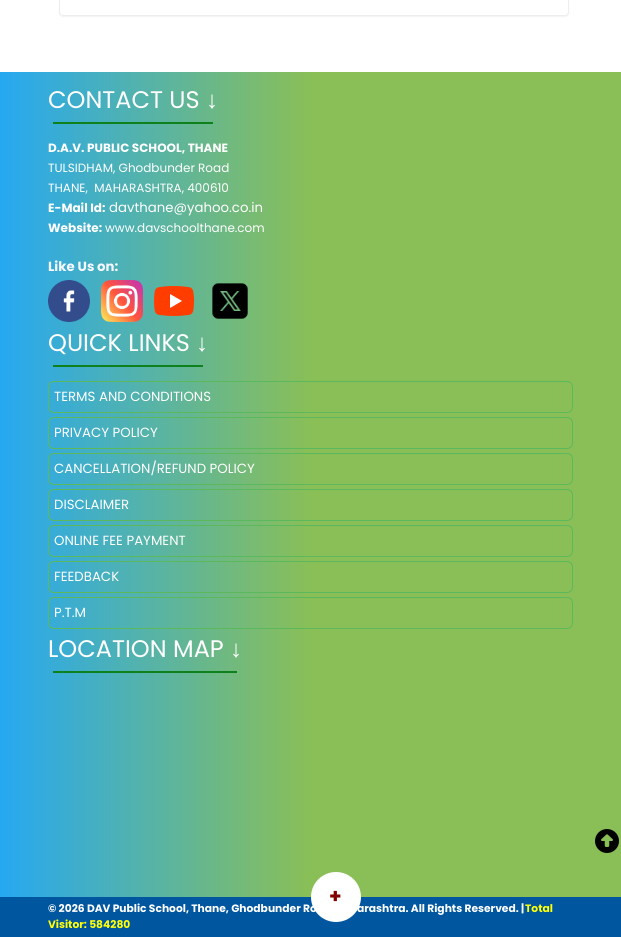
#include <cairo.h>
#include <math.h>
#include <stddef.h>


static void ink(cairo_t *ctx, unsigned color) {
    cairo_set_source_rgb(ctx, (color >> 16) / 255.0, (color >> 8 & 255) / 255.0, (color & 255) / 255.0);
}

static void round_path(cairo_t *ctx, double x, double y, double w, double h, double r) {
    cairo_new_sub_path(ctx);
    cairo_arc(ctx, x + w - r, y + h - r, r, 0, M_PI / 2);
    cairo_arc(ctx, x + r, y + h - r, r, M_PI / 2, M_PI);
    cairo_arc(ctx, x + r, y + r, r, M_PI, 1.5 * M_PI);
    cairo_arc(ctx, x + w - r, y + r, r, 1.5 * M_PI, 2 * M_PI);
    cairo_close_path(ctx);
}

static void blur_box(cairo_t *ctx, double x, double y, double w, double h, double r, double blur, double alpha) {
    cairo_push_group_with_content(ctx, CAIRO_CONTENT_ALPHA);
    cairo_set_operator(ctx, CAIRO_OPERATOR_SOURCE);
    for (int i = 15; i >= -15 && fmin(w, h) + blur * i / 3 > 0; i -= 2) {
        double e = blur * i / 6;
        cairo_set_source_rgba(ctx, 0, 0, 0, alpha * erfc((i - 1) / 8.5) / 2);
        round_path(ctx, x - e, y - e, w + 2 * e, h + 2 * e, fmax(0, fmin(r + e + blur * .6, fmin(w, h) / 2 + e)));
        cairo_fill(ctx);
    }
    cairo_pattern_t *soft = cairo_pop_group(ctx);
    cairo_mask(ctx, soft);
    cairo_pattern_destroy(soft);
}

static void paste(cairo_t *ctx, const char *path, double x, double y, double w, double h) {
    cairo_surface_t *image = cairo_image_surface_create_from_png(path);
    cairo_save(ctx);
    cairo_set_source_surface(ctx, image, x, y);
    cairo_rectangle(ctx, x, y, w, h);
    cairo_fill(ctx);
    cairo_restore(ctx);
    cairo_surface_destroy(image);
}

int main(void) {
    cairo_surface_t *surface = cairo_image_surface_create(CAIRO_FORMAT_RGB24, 621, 937);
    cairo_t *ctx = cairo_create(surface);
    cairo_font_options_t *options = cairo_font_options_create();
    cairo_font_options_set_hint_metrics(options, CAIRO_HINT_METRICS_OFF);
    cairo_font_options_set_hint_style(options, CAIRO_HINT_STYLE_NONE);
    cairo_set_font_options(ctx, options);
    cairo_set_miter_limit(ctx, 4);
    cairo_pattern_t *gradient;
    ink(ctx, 0xFFFFFF);
    cairo_paint(ctx);
    ink(ctx, 0x000000);
    blur_box(ctx, 59, -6, 510, 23, 4, 0.5, 0.05);
    ink(ctx, 0xFFFFFF);
    round_path(ctx, 59.5, -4.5, 509, 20, 3.5);
    cairo_fill_preserve(ctx);
    ink(ctx, 0xEEEEEE);
    cairo_set_line_width(ctx, 1);
    cairo_stroke(ctx);
    gradient = cairo_pattern_create_linear(0, 485, 621, 485);
    cairo_pattern_add_color_stop_rgba(gradient, 0, 0.149, 0.659, 0.949, 1);
    cairo_pattern_add_color_stop_rgba(gradient, 0.5, 0.541, 0.749, 0.341, 1);
    cairo_set_source(ctx, gradient);
    cairo_pattern_destroy(gradient);
    cairo_rectangle(ctx, 0, 72, 621, 825);
    cairo_fill(ctx);
    cairo_select_font_face(ctx, "Poppins", CAIRO_FONT_SLANT_NORMAL, CAIRO_FONT_WEIGHT_NORMAL);
    cairo_set_font_size(ctx, 24);
    ink(ctx, 0xFFFFFF);
    cairo_move_to(ctx, 48, 108);
    cairo_show_text(ctx, "CONTACT US");
    cairo_select_font_face(ctx, "Liberation Sans", CAIRO_FONT_SLANT_NORMAL, CAIRO_FONT_WEIGHT_NORMAL);
    cairo_move_to(ctx, 206, 108);
    cairo_show_text(ctx, "↓");
    ink(ctx, 0x0E801C);
    cairo_rectangle(ctx, 53, 122, 160, 2);
    cairo_fill(ctx);
    cairo_select_font_face(ctx, "Poppins", CAIRO_FONT_SLANT_NORMAL, CAIRO_FONT_WEIGHT_BOLD);
    cairo_set_font_size(ctx, 12);
    ink(ctx, 0xFFFFFF);
    cairo_move_to(ctx, 48, 152);
    cairo_show_text(ctx, "D.A.V. PUBLIC SCHOOL, THANE");
    cairo_select_font_face(ctx, "Poppins", CAIRO_FONT_SLANT_NORMAL, CAIRO_FONT_WEIGHT_NORMAL);
    cairo_move_to(ctx, 48, 172);
    cairo_show_text(ctx, "TULSIDHAM, Ghodbunder Road");
    cairo_move_to(ctx, 48, 192);
    cairo_show_text(ctx, "THANE,  MAHARASHTRA, 400610");
    cairo_select_font_face(ctx, "Poppins", CAIRO_FONT_SLANT_NORMAL, CAIRO_FONT_WEIGHT_BOLD);
    cairo_move_to(ctx, 48, 212);
    cairo_show_text(ctx, "E-Mail Id:");
    cairo_select_font_face(ctx, "Poppins", CAIRO_FONT_SLANT_NORMAL, CAIRO_FONT_WEIGHT_NORMAL);
    cairo_set_font_size(ctx, 13.3);
    cairo_move_to(ctx, 109, 212);
    cairo_show_text(ctx, "davthane@yahoo.co.in");
    cairo_select_font_face(ctx, "Poppins", CAIRO_FONT_SLANT_NORMAL, CAIRO_FONT_WEIGHT_BOLD);
    cairo_set_font_size(ctx, 12);
    cairo_move_to(ctx, 48, 232);
    cairo_show_text(ctx, "Website:");
    cairo_select_font_face(ctx, "Poppins", CAIRO_FONT_SLANT_NORMAL, CAIRO_FONT_WEIGHT_NORMAL);
    cairo_move_to(ctx, 105, 232);
    cairo_show_text(ctx, "www.davschoolthane.com");
    cairo_select_font_face(ctx, "Poppins", CAIRO_FONT_SLANT_NORMAL, CAIRO_FONT_WEIGHT_BOLD);
    cairo_set_font_size(ctx, 13.3);
    ink(ctx, 0xF8F8FF);
    cairo_move_to(ctx, 48, 271);
    cairo_show_text(ctx, "Like Us on:");
    paste(ctx, "media/1.png", 48, 280, 42, 42);
    paste(ctx, "media/2.png", 101, 280, 42, 42);
    paste(ctx, "media/3.png", 154, 286, 41, 30);
    paste(ctx, "media/4.png", 212, 283, 36, 36);
    cairo_select_font_face(ctx, "Poppins", CAIRO_FONT_SLANT_NORMAL, CAIRO_FONT_WEIGHT_NORMAL);
    cairo_set_font_size(ctx, 24);
    ink(ctx, 0xFFFFFF);
    cairo_move_to(ctx, 48, 351);
    cairo_show_text(ctx, "QUICK LINKS");
    ink(ctx, 0x0E801C);
    cairo_rectangle(ctx, 53, 365, 150, 2);
    cairo_fill(ctx);
    cairo_select_font_face(ctx, "Liberation Sans", CAIRO_FONT_SLANT_NORMAL, CAIRO_FONT_WEIGHT_NORMAL);
    ink(ctx, 0xFFFFFF);
    cairo_move_to(ctx, 196, 351);
    cairo_show_text(ctx, "↓");
    round_path(ctx, 48.5, 381.5, 524, 31, 5.5);
    ink(ctx, 0x5CB85C);
    cairo_stroke(ctx);
    cairo_select_font_face(ctx, "Poppins", CAIRO_FONT_SLANT_NORMAL, CAIRO_FONT_WEIGHT_NORMAL);
    cairo_set_font_size(ctx, 13.3);
    ink(ctx, 0xFFFFFF);
    cairo_move_to(ctx, 54, 401);
    cairo_show_text(ctx, "TERMS AND CONDITIONS");
    round_path(ctx, 48.5, 417.5, 524, 31, 5.5);
    ink(ctx, 0x5CB85C);
    cairo_stroke(ctx);
    ink(ctx, 0xFFFFFF);
    cairo_move_to(ctx, 54, 437);
    cairo_show_text(ctx, "PRIVACY POLICY");
    round_path(ctx, 48.5, 453.5, 524, 31, 5.5);
    ink(ctx, 0x5CB85C);
    cairo_stroke(ctx);
    ink(ctx, 0xFFFFFF);
    cairo_move_to(ctx, 54, 473);
    cairo_show_text(ctx, "CANCELLATION/REFUND POLICY");
    round_path(ctx, 48.5, 489.5, 524, 31, 5.5);
    ink(ctx, 0x5CB85C);
    cairo_stroke(ctx);
    ink(ctx, 0xFFFFFF);
    cairo_move_to(ctx, 54, 509);
    cairo_show_text(ctx, "DISCLAIMER");
    round_path(ctx, 48.5, 525.5, 524, 31, 5.5);
    ink(ctx, 0x5CB85C);
    cairo_stroke(ctx);
    ink(ctx, 0xFFFFFF);
    cairo_move_to(ctx, 54, 545);
    cairo_show_text(ctx, "ONLINE FEE PAYMENT");
    round_path(ctx, 48.5, 561.5, 524, 31, 5.5);
    ink(ctx, 0x5CB85C);
    cairo_stroke(ctx);
    ink(ctx, 0xFFFFFF);
    cairo_move_to(ctx, 54, 581);
    cairo_show_text(ctx, "FEEDBACK");
    round_path(ctx, 48.5, 597.5, 524, 31, 5.5);
    ink(ctx, 0x5CB85C);
    cairo_stroke(ctx);
    ink(ctx, 0xFFFFFF);
    cairo_move_to(ctx, 54, 617);
    cairo_show_text(ctx, "P.T.M");
    cairo_set_font_size(ctx, 24);
    cairo_move_to(ctx, 48, 657);
    cairo_show_text(ctx, "LOCATION MAP");
    cairo_select_font_face(ctx, "Liberation Sans", CAIRO_FONT_SLANT_NORMAL, CAIRO_FONT_WEIGHT_NORMAL);
    cairo_move_to(ctx, 230, 657);
    cairo_show_text(ctx, "↓");
    ink(ctx, 0x0E801C);
    cairo_rectangle(ctx, 53, 671, 184, 2);
    cairo_fill(ctx);
    paste(ctx, "media/5.png", 595, 829, 24, 24);
    ink(ctx, 0x00579F);
    cairo_rectangle(ctx, 0, 897, 621, 40);
    cairo_fill(ctx);
    ink(ctx, 0xFFFFFF);
    cairo_arc(ctx, 336, 897, 25, 0, 2 * M_PI);
    cairo_fill(ctx);
    cairo_select_font_face(ctx, "Poppins", CAIRO_FONT_SLANT_NORMAL, CAIRO_FONT_WEIGHT_BOLD);
    cairo_set_font_size(ctx, 20);
    ink(ctx, 0x800000);
    cairo_move_to(ctx, 329, 903);
    cairo_show_text(ctx, "+");
    cairo_set_font_size(ctx, 10.7);
    ink(ctx, 0xFFFFFF);
    cairo_move_to(ctx, 48, 912);
    cairo_show_text(ctx, "© 2026 DAV Public School, Thane, Ghodbunder Ro");
    cairo_move_to(ctx, 357, 912);
    cairo_show_text(ctx, "arashtra. All Rights Reserved. |");
    ink(ctx, 0xFFFF09);
    cairo_move_to(ctx, 525, 912);
    cairo_show_text(ctx, "Total");
    cairo_move_to(ctx, 48, 928);
    cairo_show_text(ctx, "Visitor: 584280");
    cairo_surface_write_to_png(surface, "image.png");
    cairo_font_options_destroy(options);
    cairo_destroy(ctx);
    cairo_surface_destroy(surface);
    return 0;
}
